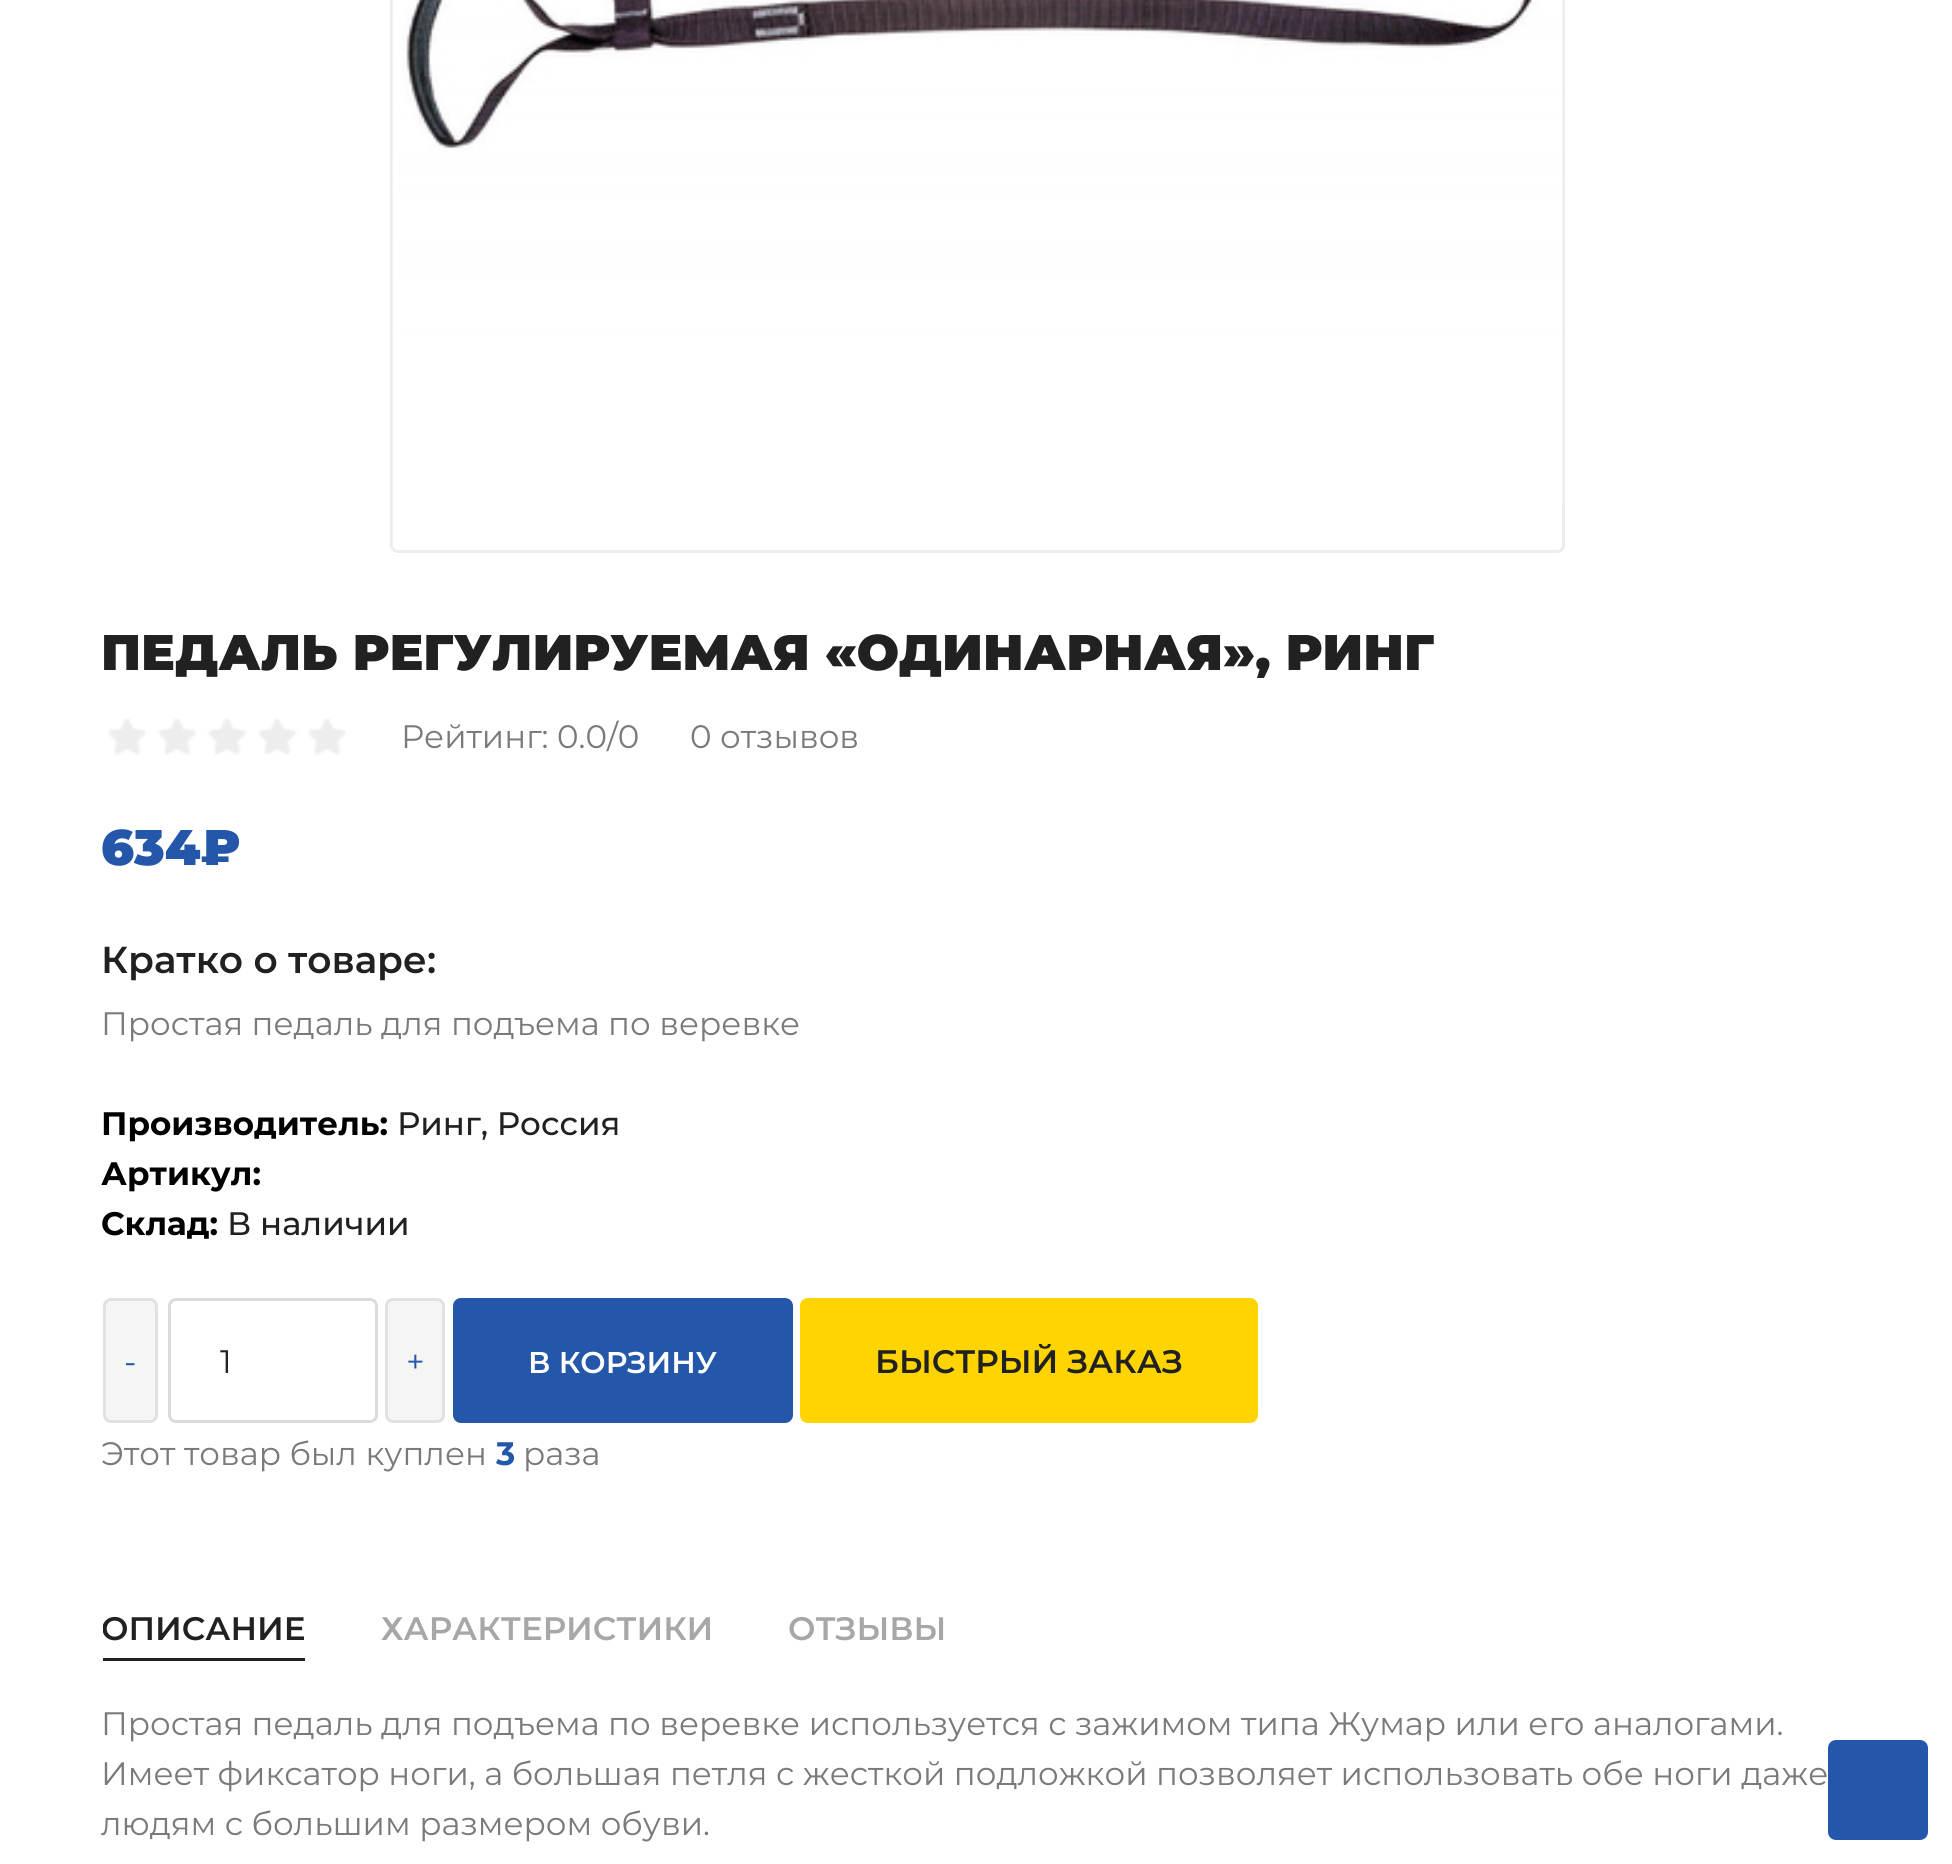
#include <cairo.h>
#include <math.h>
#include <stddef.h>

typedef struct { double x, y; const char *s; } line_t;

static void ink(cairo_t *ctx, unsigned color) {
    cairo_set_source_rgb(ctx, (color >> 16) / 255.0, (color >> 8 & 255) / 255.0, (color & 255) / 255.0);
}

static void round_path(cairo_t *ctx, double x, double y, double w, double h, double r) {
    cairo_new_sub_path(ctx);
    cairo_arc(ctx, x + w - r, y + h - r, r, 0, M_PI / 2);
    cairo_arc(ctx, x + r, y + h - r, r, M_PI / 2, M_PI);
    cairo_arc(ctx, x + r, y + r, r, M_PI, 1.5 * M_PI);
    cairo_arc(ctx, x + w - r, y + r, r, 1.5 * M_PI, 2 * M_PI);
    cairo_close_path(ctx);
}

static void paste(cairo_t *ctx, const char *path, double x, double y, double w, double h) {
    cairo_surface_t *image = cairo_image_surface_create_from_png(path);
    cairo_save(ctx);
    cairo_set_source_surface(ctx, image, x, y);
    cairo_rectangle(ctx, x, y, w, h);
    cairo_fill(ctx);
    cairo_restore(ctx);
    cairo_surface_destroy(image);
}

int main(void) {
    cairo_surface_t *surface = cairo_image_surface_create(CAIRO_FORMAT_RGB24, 1952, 1864);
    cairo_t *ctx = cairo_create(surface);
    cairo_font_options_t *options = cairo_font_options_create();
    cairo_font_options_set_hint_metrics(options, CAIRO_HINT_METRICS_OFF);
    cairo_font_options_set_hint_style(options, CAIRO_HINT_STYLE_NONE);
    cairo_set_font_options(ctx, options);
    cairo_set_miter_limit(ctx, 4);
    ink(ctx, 0xFFFFFF);
    cairo_paint(ctx);
    round_path(ctx, 391.5, -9.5, 1172, 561, 6.5);
    ink(ctx, 0xEDEDED);
    cairo_set_line_width(ctx, 3);
    cairo_stroke(ctx);
    ink(ctx, 0xE1E1E1);
    cairo_rectangle(ctx, 1562, 505, 1, 40);
    cairo_fill(ctx);
    paste(ctx, "media/1.png", 392, 0, 1171, 548);
    cairo_select_font_face(ctx, "Montserrat Black", CAIRO_FONT_SLANT_NORMAL, CAIRO_FONT_WEIGHT_NORMAL);
    cairo_set_font_size(ctx, 50);
    ink(ctx, 0x212121);
    cairo_move_to(ctx, 101, 670);
    cairo_show_text(ctx, "ПЕДАЛЬ РЕГУЛИРУЕМАЯ «ОДИНАРНАЯ», РИНГ");
    paste(ctx, "media/2.png", 107, 718, 239, 37);
    cairo_select_font_face(ctx, "Montserrat", CAIRO_FONT_SLANT_NORMAL, CAIRO_FONT_WEIGHT_NORMAL);
    cairo_set_font_size(ctx, 32.5);
    ink(ctx, 0x7A7A7A);
    cairo_move_to(ctx, 401, 748);
    cairo_show_text(ctx, "Рейтинг: 0.0/0");
    cairo_move_to(ctx, 690, 748);
    cairo_show_text(ctx, "0 отзывов");
    cairo_select_font_face(ctx, "Montserrat Black", CAIRO_FONT_SLANT_NORMAL, CAIRO_FONT_WEIGHT_NORMAL);
    cairo_set_font_size(ctx, 50);
    ink(ctx, 0x2457AA);
    cairo_move_to(ctx, 101, 865);
    cairo_show_text(ctx, "634₽");
    cairo_select_font_face(ctx, "Montserrat SemiBold", CAIRO_FONT_SLANT_NORMAL, CAIRO_FONT_WEIGHT_NORMAL);
    cairo_set_font_size(ctx, 37.5);
    ink(ctx, 0x212121);
    cairo_move_to(ctx, 101, 973);
    cairo_show_text(ctx, "Кратко о товаре:");
    cairo_select_font_face(ctx, "Montserrat", CAIRO_FONT_SLANT_NORMAL, CAIRO_FONT_WEIGHT_NORMAL);
    cairo_set_font_size(ctx, 32.5);
    ink(ctx, 0x7A7A7A);
    cairo_move_to(ctx, 101, 1035);
    cairo_show_text(ctx, "Простая педаль для подъема по веревке");
    cairo_select_font_face(ctx, "Montserrat", CAIRO_FONT_SLANT_NORMAL, CAIRO_FONT_WEIGHT_BOLD);
    ink(ctx, 0x000000);
    cairo_move_to(ctx, 101, 1135);
    cairo_show_text(ctx, "Производитель:");
    cairo_select_font_face(ctx, "Montserrat Medium", CAIRO_FONT_SLANT_NORMAL, CAIRO_FONT_WEIGHT_NORMAL);
    ink(ctx, 0x212121);
    cairo_move_to(ctx, 397, 1135);
    cairo_show_text(ctx, "Ринг, Россия");
    cairo_select_font_face(ctx, "Montserrat", CAIRO_FONT_SLANT_NORMAL, CAIRO_FONT_WEIGHT_BOLD);
    ink(ctx, 0x000000);
    cairo_move_to(ctx, 101, 1185);
    cairo_show_text(ctx, "Артикул:");
    cairo_move_to(ctx, 101, 1235);
    cairo_show_text(ctx, "Склад:");
    cairo_select_font_face(ctx, "Montserrat Medium", CAIRO_FONT_SLANT_NORMAL, CAIRO_FONT_WEIGHT_NORMAL);
    ink(ctx, 0x212121);
    cairo_move_to(ctx, 227, 1235);
    cairo_show_text(ctx, "В наличии");
    ink(ctx, 0xF5F5F5);
    round_path(ctx, 104.5, 1299.5, 52, 122, 6.5);
    cairo_fill_preserve(ctx);
    ink(ctx, 0xE1E1E1);
    cairo_stroke(ctx);
    cairo_select_font_face(ctx, "Montserrat", CAIRO_FONT_SLANT_NORMAL, CAIRO_FONT_WEIGHT_NORMAL);
    ink(ctx, 0x2457AA);
    cairo_move_to(ctx, 124, 1373);
    cairo_show_text(ctx, "-");
    round_path(ctx, 169.5, 1299.5, 207, 122, 6.5);
    ink(ctx, 0xDBDBDB);
    cairo_stroke(ctx);
    ink(ctx, 0x212121);
    cairo_move_to(ctx, 220, 1373);
    cairo_show_text(ctx, "1");
    ink(ctx, 0xF5F5F5);
    round_path(ctx, 386.5, 1299.5, 57, 122, 6.5);
    cairo_fill_preserve(ctx);
    ink(ctx, 0xE1E1E1);
    cairo_stroke(ctx);
    ink(ctx, 0x2457AA);
    cairo_move_to(ctx, 406, 1373);
    cairo_show_text(ctx, "+");
    round_path(ctx, 453, 1298, 340, 125, 8);
    cairo_fill(ctx);
    cairo_select_font_face(ctx, "Montserrat SemiBold", CAIRO_FONT_SLANT_NORMAL, CAIRO_FONT_WEIGHT_NORMAL);
    cairo_set_font_size(ctx, 30);
    ink(ctx, 0xFFFFFF);
    cairo_move_to(ctx, 528, 1373);
    cairo_show_text(ctx, "В КОРЗИНУ");
    ink(ctx, 0xFFD400);
    round_path(ctx, 800, 1298, 458, 125, 8);
    cairo_fill(ctx);
    cairo_set_font_size(ctx, 32.5);
    ink(ctx, 0x212121);
    cairo_move_to(ctx, 875, 1373);
    cairo_show_text(ctx, "БЫСТРЫЙ ЗАКАЗ");
    cairo_select_font_face(ctx, "Montserrat", CAIRO_FONT_SLANT_NORMAL, CAIRO_FONT_WEIGHT_NORMAL);
    ink(ctx, 0x7A7A7A);
    cairo_move_to(ctx, 101, 1465);
    cairo_show_text(ctx, "Этот товар был куплен");
    cairo_select_font_face(ctx, "Montserrat", CAIRO_FONT_SLANT_NORMAL, CAIRO_FONT_WEIGHT_BOLD);
    ink(ctx, 0x2457AA);
    cairo_move_to(ctx, 496, 1465);
    cairo_show_text(ctx, "3");
    cairo_select_font_face(ctx, "Montserrat", CAIRO_FONT_SLANT_NORMAL, CAIRO_FONT_WEIGHT_NORMAL);
    ink(ctx, 0x7A7A7A);
    cairo_move_to(ctx, 523, 1465);
    cairo_show_text(ctx, "раза");
    ink(ctx, 0x212121);
    cairo_rectangle(ctx, 103, 1658, 202, 3);
    cairo_fill(ctx);
    cairo_save(ctx);
    cairo_rectangle(ctx, 103, 1603, 1750, 95);
    cairo_clip(ctx);
    cairo_select_font_face(ctx, "Montserrat SemiBold", CAIRO_FONT_SLANT_NORMAL, CAIRO_FONT_WEIGHT_NORMAL);
    cairo_move_to(ctx, 101, 1640);
    cairo_show_text(ctx, "ОПИСАНИЕ");
    cairo_restore(ctx);
    cairo_select_font_face(ctx, "Montserrat SemiBold", CAIRO_FONT_SLANT_NORMAL, CAIRO_FONT_WEIGHT_NORMAL);
    ink(ctx, 0xA7A7A7);
    cairo_move_to(ctx, 381, 1640);
    cairo_show_text(ctx, "ХАРАКТЕРИСТИКИ");
    cairo_move_to(ctx, 788, 1640);
    cairo_show_text(ctx, "ОТЗЫВЫ");
    cairo_select_font_face(ctx, "Montserrat", CAIRO_FONT_SLANT_NORMAL, CAIRO_FONT_WEIGHT_NORMAL);
    ink(ctx, 0x7A7A7A);
    {
        static const line_t items[] = {
            {101, 1735, "Простая педаль для подъема по веревке используется с зажимом типа Жумар или его аналогами."},
            {101, 1785, "Имеет фиксатор ноги, а большая петля с жесткой подложкой позволяет использовать обе ноги даже"},
            {101, 1835, "людям с большим размером обуви."},
        };
        for (size_t i = 0; i < sizeof items / sizeof *items; i++) {
            cairo_move_to(ctx, items[i].x, items[i].y);
            cairo_show_text(ctx, items[i].s);
        }
    }
    ink(ctx, 0x2457AA);
    round_path(ctx, 1828, 1740, 100, 100, 8);
    cairo_fill(ctx);
    cairo_surface_write_to_png(surface, "image.png");
    cairo_font_options_destroy(options);
    cairo_destroy(ctx);
    cairo_surface_destroy(surface);
    return 0;
}
